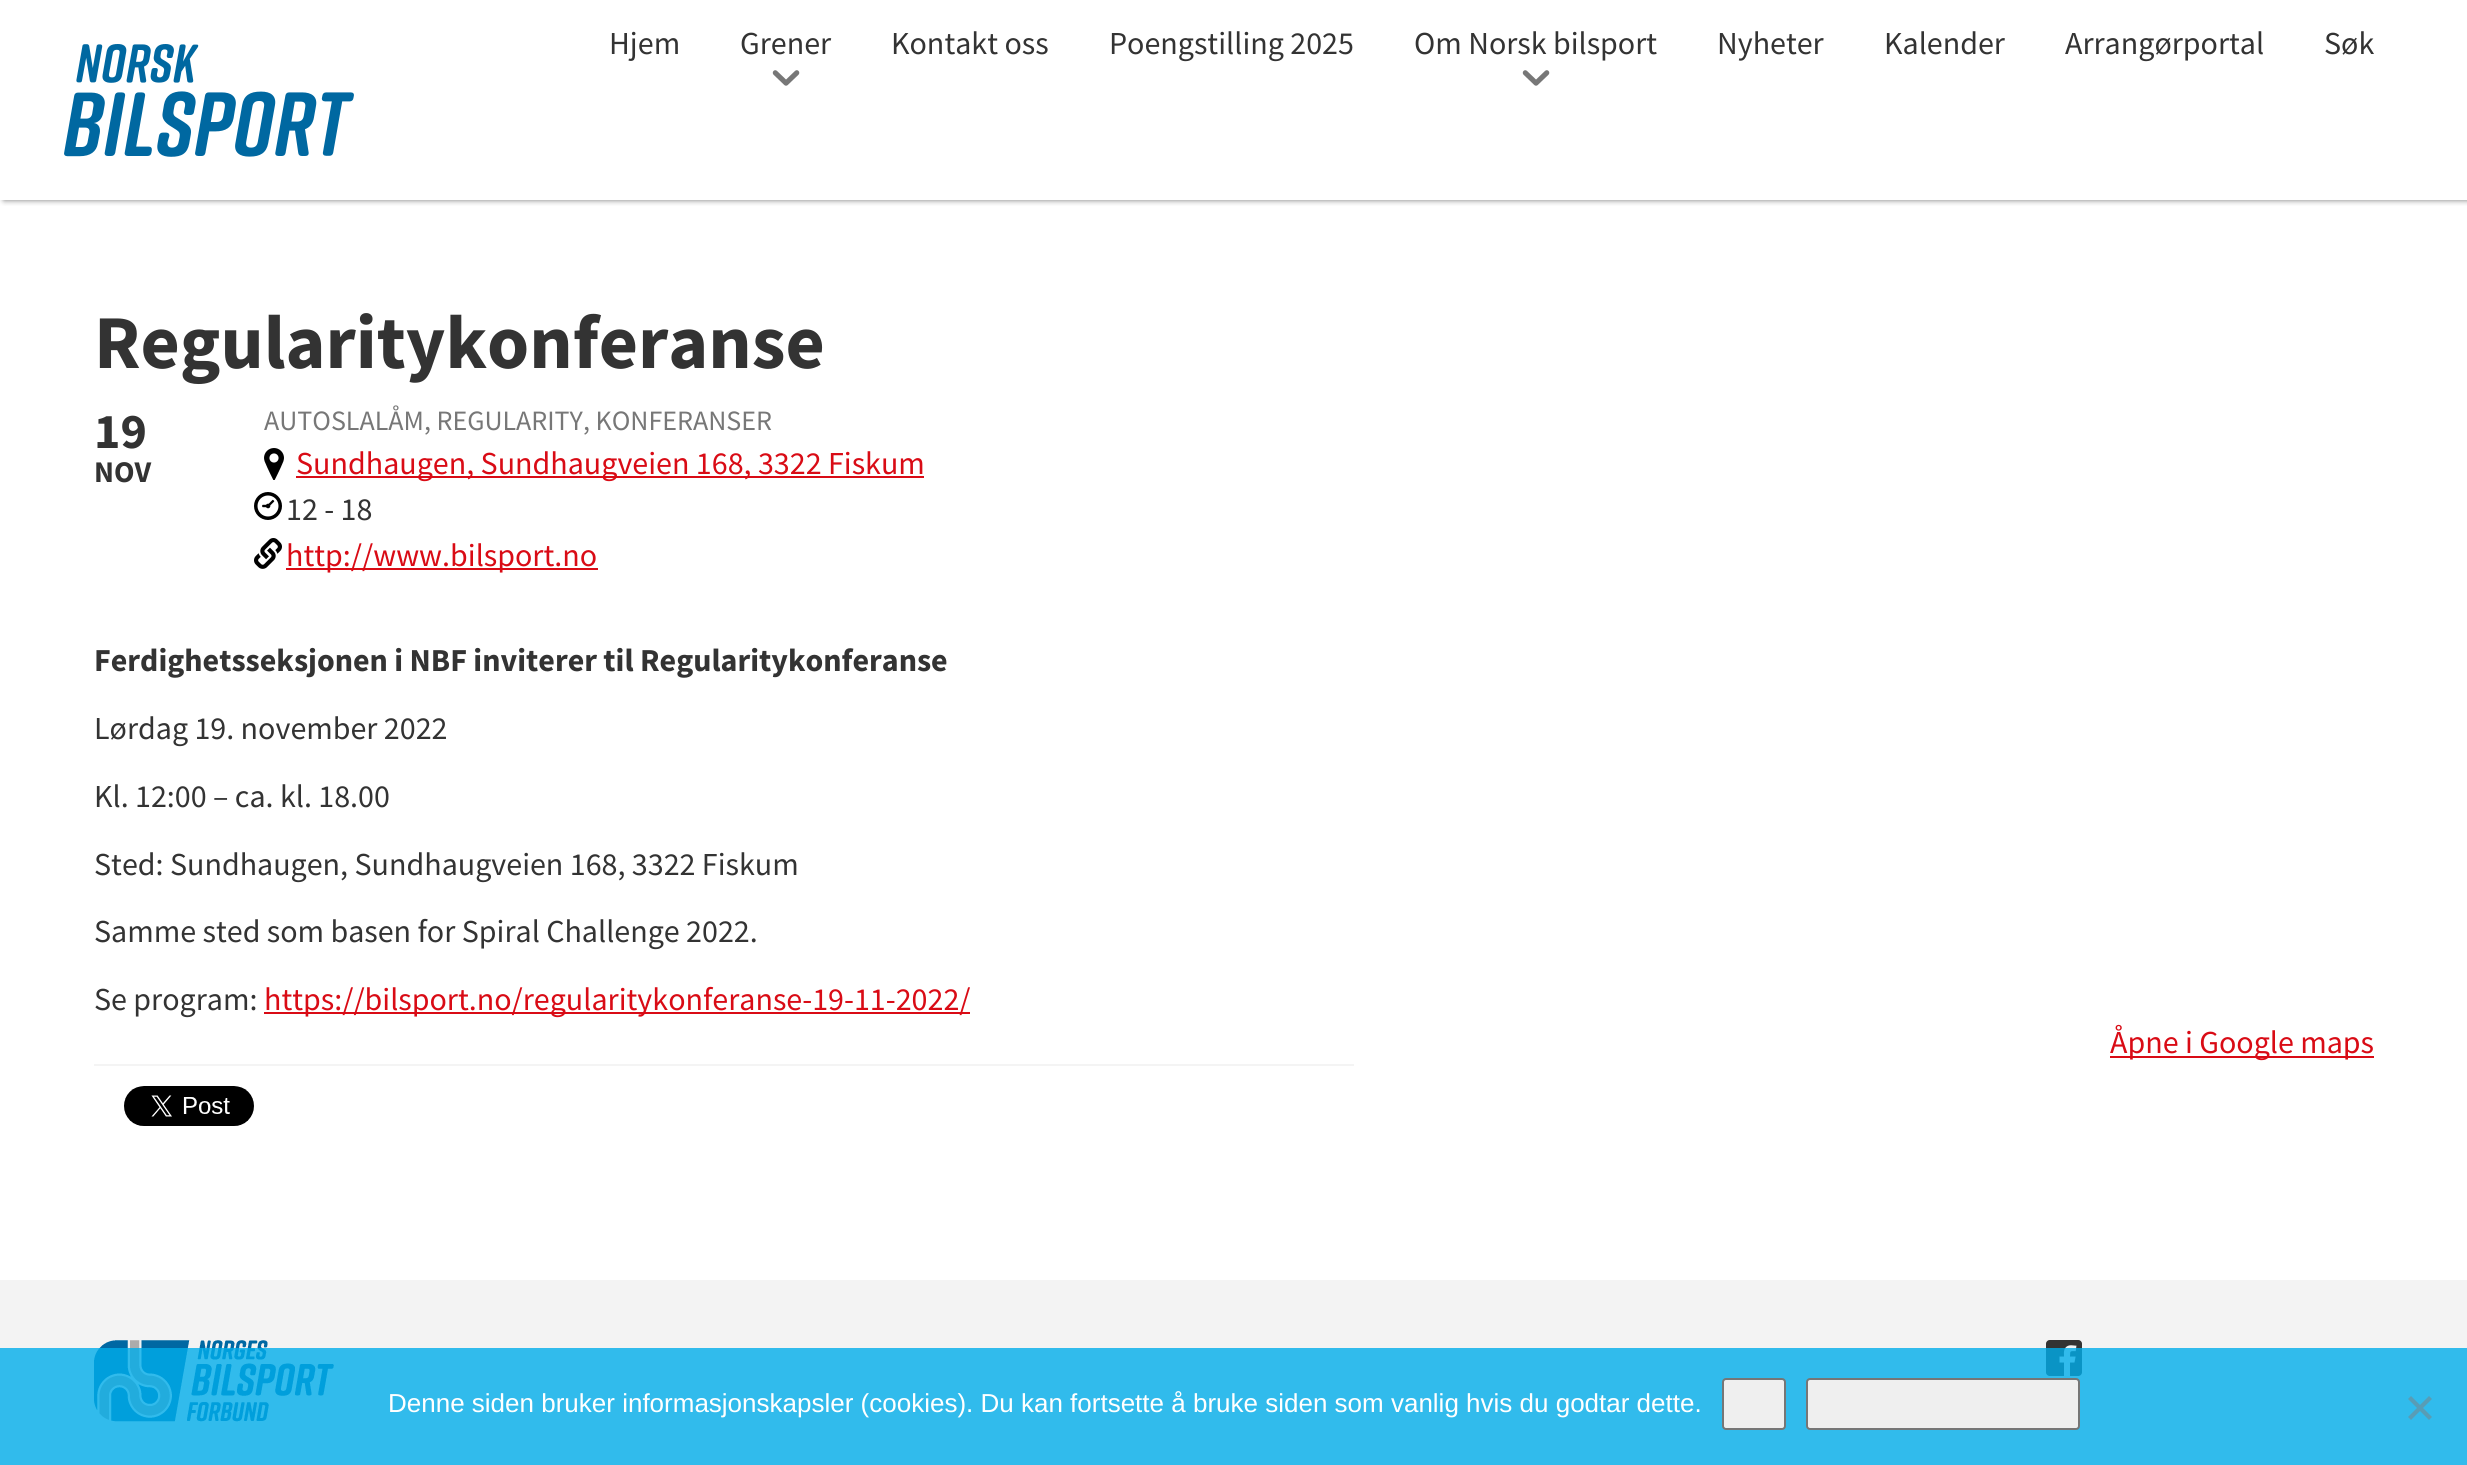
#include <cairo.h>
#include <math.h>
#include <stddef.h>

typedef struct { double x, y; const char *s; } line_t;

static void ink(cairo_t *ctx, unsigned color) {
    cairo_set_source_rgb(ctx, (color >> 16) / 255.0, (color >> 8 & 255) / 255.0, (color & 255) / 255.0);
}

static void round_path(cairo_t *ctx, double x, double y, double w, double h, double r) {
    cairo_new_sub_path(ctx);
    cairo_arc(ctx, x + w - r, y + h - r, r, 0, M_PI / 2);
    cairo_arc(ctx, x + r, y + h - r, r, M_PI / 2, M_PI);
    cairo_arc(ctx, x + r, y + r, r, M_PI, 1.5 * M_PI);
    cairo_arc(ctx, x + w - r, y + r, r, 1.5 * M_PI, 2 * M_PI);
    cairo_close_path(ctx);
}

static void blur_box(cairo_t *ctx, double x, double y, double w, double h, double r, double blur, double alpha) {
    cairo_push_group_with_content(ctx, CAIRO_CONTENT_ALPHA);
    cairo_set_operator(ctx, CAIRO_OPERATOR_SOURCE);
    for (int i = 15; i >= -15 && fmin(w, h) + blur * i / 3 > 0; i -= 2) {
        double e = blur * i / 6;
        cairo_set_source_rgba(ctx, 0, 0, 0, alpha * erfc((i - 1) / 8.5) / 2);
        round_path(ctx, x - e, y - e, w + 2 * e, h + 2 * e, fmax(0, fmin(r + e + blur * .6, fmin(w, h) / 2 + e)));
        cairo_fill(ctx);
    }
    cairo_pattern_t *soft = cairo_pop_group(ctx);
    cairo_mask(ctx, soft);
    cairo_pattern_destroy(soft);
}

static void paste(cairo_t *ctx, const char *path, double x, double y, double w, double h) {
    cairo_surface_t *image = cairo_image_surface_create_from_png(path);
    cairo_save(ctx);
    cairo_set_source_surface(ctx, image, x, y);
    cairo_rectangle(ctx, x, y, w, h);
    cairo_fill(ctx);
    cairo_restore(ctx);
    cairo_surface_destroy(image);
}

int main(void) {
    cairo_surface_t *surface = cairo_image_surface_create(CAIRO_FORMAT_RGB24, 2467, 1465);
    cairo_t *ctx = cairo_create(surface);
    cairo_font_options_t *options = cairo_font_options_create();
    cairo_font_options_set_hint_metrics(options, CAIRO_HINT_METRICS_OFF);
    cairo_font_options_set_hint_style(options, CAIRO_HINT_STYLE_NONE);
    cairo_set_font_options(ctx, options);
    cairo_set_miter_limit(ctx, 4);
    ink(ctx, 0xFFFFFF);
    cairo_paint(ctx);
    cairo_save(ctx);
    cairo_rectangle(ctx, 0, 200, 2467, 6);
    cairo_clip(ctx);
    ink(ctx, 0x777777);
    blur_box(ctx, 4, 0, 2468, 200, 0, 3, 1);
    cairo_restore(ctx);
    paste(ctx, "media/1.png", 64, 44, 290, 113);
    cairo_select_font_face(ctx, "Source Sans Pro", CAIRO_FONT_SLANT_NORMAL, CAIRO_FONT_WEIGHT_NORMAL);
    cairo_set_font_size(ctx, 32);
    ink(ctx, 0x333333);
    cairo_move_to(ctx, 609, 54);
    cairo_show_text(ctx, "Hjem");
    cairo_move_to(ctx, 740, 54);
    cairo_show_text(ctx, "Grener");
    paste(ctx, "media/2.png", 772, 70, 28, 16);
    {
        static const line_t items[] = {
            {891, 54, "Kontakt oss"},
            {1109, 54, "Poengstilling 2025"},
            {1414, 54, "Om Norsk bilsport"},
        };
        for (size_t i = 0; i < sizeof items / sizeof *items; i++) {
            cairo_move_to(ctx, items[i].x, items[i].y);
            cairo_show_text(ctx, items[i].s);
        }
    }
    paste(ctx, "media/2.png", 1522, 70, 28, 16);
    {
        static const line_t items[] = {
            {1717, 54, "Nyheter"},
            {1884, 54, "Kalender"},
            {2065, 54, "Arrangørportal"},
            {2324, 54, "Søk"},
        };
        for (size_t i = 0; i < sizeof items / sizeof *items; i++) {
            cairo_move_to(ctx, items[i].x, items[i].y);
            cairo_show_text(ctx, items[i].s);
        }
    }
    cairo_select_font_face(ctx, "Source Sans Pro", CAIRO_FONT_SLANT_NORMAL, CAIRO_FONT_WEIGHT_BOLD);
    cairo_set_font_size(ctx, 76);
    cairo_move_to(ctx, 94, 368);
    cairo_show_text(ctx, "Regularitykonferanse");
    cairo_set_font_size(ctx, 50);
    cairo_move_to(ctx, 94, 448);
    cairo_show_text(ctx, "19");
    cairo_set_font_size(ctx, 30);
    cairo_move_to(ctx, 94, 482);
    cairo_show_text(ctx, "NOV");
    cairo_select_font_face(ctx, "Source Sans Pro", CAIRO_FONT_SLANT_NORMAL, CAIRO_FONT_WEIGHT_NORMAL);
    cairo_set_font_size(ctx, 28);
    ink(ctx, 0x777777);
    cairo_move_to(ctx, 264, 430);
    cairo_show_text(ctx, "AUTOSLALÅM, REGULARITY, KONFERANSER");
    paste(ctx, "media/3.png", 264, 448, 20, 32);
    ink(ctx, 0xD90B15);
    cairo_rectangle(ctx, 296, 476, 628, 2);
    cairo_fill(ctx);
    cairo_set_font_size(ctx, 32);
    cairo_move_to(ctx, 296, 474);
    cairo_show_text(ctx, "Sundhaugen, Sundhaugveien 168, 3322 Fiskum");
    paste(ctx, "media/4.png", 254, 492, 28, 28);
    ink(ctx, 0x333333);
    cairo_move_to(ctx, 286, 520);
    cairo_show_text(ctx, "12 - 18");
    paste(ctx, "media/5.png", 254, 538, 28, 31);
    ink(ctx, 0xD90B15);
    cairo_rectangle(ctx, 286, 568, 312, 2);
    cairo_fill(ctx);
    cairo_move_to(ctx, 286, 566);
    cairo_show_text(ctx, "http://www.bilsport.no");
    cairo_select_font_face(ctx, "Source Sans Pro", CAIRO_FONT_SLANT_NORMAL, CAIRO_FONT_WEIGHT_BOLD);
    ink(ctx, 0x333333);
    cairo_move_to(ctx, 94, 671);
    cairo_show_text(ctx, "Ferdighetsseksjonen i NBF inviterer til Regularitykonferanse");
    cairo_select_font_face(ctx, "Source Sans Pro", CAIRO_FONT_SLANT_NORMAL, CAIRO_FONT_WEIGHT_NORMAL);
    {
        static const line_t items[] = {
            {94, 739, "Lørdag 19. november 2022"},
            {94, 807, "Kl. 12:00 – ca. kl. 18.00"},
            {94, 875, "Sted: Sundhaugen, Sundhaugveien 168, 3322 Fiskum"},
            {94, 942, "Samme sted som basen for Spiral Challenge 2022."},
            {94, 1010, "Se program:"},
        };
        for (size_t i = 0; i < sizeof items / sizeof *items; i++) {
            cairo_move_to(ctx, items[i].x, items[i].y);
            cairo_show_text(ctx, items[i].s);
        }
    }
    ink(ctx, 0xD90B15);
    cairo_rectangle(ctx, 264, 1012, 706, 2);
    cairo_fill(ctx);
    cairo_move_to(ctx, 264, 1010);
    cairo_show_text(ctx, "https://bilsport.no/regularitykonferanse-19-11-2022/");
    ink(ctx, 0xF4F4F4);
    cairo_rectangle(ctx, 94, 1064, 1260, 2);
    cairo_fill(ctx);
    paste(ctx, "media/6.png", 124, 1086, 130, 40);
    ink(ctx, 0xD90B15);
    cairo_rectangle(ctx, 2110, 1056, 264, 2);
    cairo_fill(ctx);
    cairo_move_to(ctx, 2110, 1053);
    cairo_show_text(ctx, "Åpne i Google maps");
    ink(ctx, 0xF3F3F3);
    cairo_rectangle(ctx, 0, 1280, 2467, 185);
    cairo_fill(ctx);
    paste(ctx, "media/7.png", 94, 1340, 240, 82);
    paste(ctx, "media/8.png", 2046, 1340, 36, 36);
    cairo_set_source_rgba(ctx, 0, 0.675, 0.914, 0.8);
    cairo_rectangle(ctx, 0, 1348, 2467, 117);
    cairo_fill(ctx);
    cairo_select_font_face(ctx, "Liberation Sans", CAIRO_FONT_SLANT_NORMAL, CAIRO_FONT_WEIGHT_NORMAL);
    cairo_set_font_size(ctx, 26);
    ink(ctx, 0xFFFFFF);
    cairo_move_to(ctx, 388, 1412);
    cairo_show_text(ctx, "Denne siden bruker informasjonskapsler (cookies). Du kan fortsette å bruke siden som vanlig hvis du godtar dette.");
    ink(ctx, 0xEFEFEF);
    round_path(ctx, 1723, 1379, 62, 50, 3);
    cairo_fill_preserve(ctx);
    ink(ctx, 0x767676);
    cairo_stroke(ctx);
    ink(ctx, 0xEFEFEF);
    round_path(ctx, 1807, 1379, 272, 50, 3);
    cairo_fill_preserve(ctx);
    ink(ctx, 0x767676);
    cairo_stroke(ctx);
    ink(ctx, 0x589DB6);
    cairo_new_path(ctx);
    cairo_move_to(ctx, 2429, 1396);
    cairo_line_to(ctx, 2432, 1399);
    cairo_line_to(ctx, 2411, 1420);
    cairo_line_to(ctx, 2408, 1417);
    cairo_close_path(ctx);
    cairo_fill(ctx);
    cairo_new_path(ctx);
    cairo_move_to(ctx, 2408, 1399);
    cairo_line_to(ctx, 2411, 1396);
    cairo_line_to(ctx, 2432, 1417);
    cairo_line_to(ctx, 2429, 1420);
    cairo_close_path(ctx);
    cairo_fill(ctx);
    cairo_surface_write_to_png(surface, "image.png");
    cairo_font_options_destroy(options);
    cairo_destroy(ctx);
    cairo_surface_destroy(surface);
    return 0;
}
